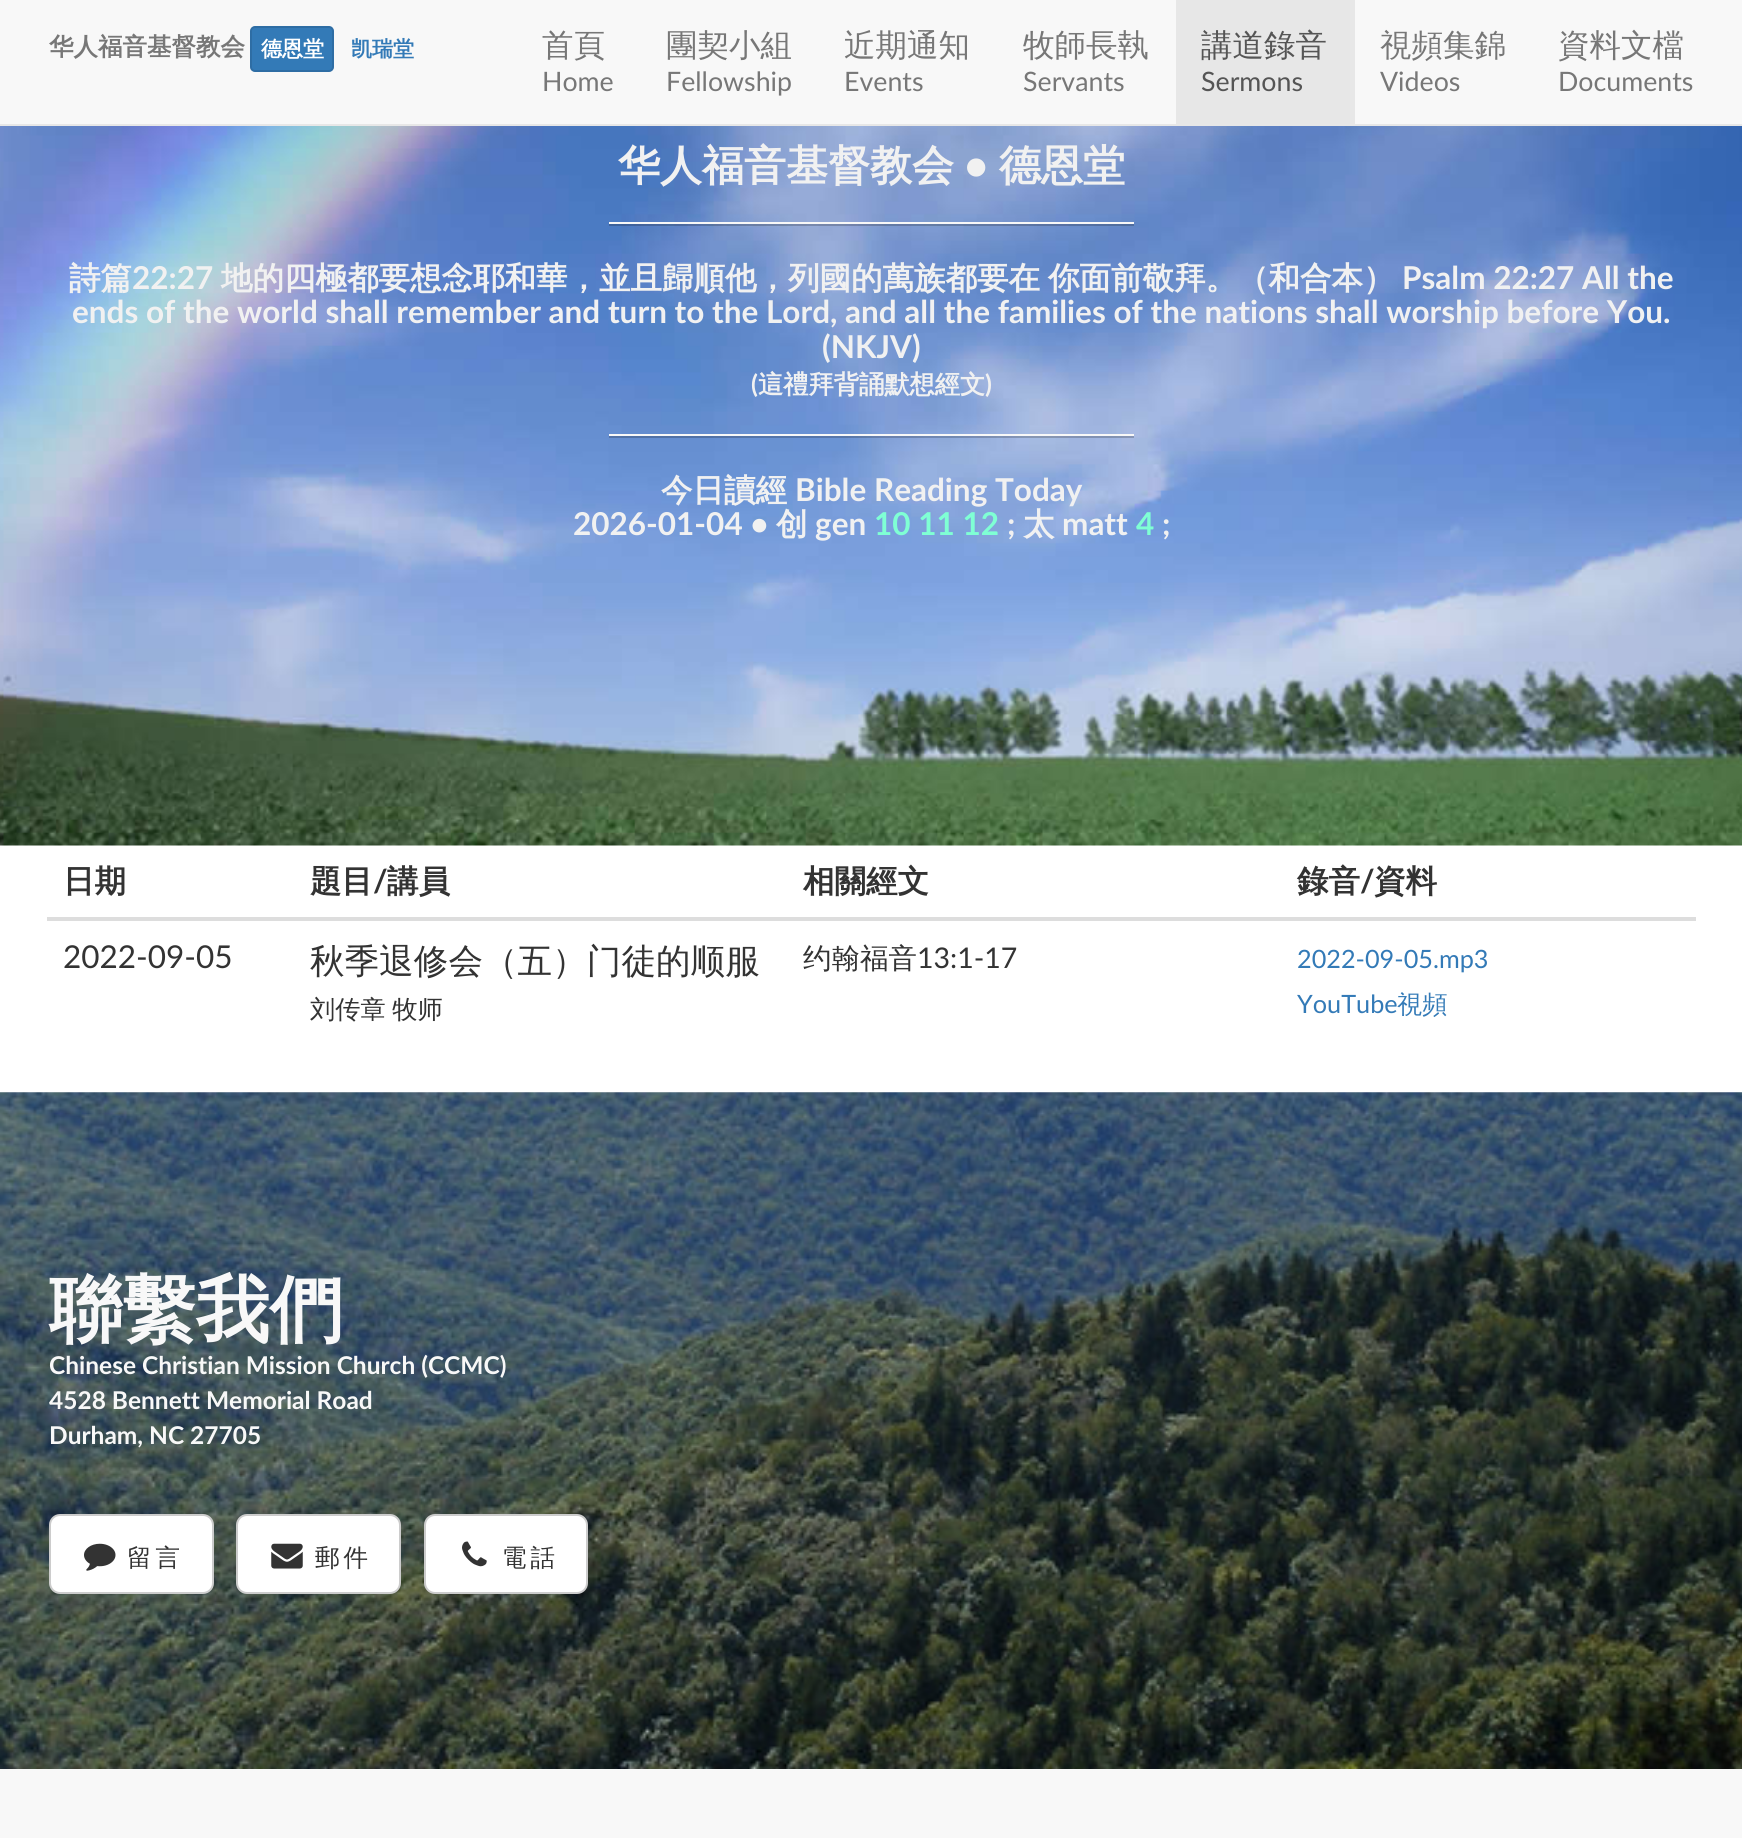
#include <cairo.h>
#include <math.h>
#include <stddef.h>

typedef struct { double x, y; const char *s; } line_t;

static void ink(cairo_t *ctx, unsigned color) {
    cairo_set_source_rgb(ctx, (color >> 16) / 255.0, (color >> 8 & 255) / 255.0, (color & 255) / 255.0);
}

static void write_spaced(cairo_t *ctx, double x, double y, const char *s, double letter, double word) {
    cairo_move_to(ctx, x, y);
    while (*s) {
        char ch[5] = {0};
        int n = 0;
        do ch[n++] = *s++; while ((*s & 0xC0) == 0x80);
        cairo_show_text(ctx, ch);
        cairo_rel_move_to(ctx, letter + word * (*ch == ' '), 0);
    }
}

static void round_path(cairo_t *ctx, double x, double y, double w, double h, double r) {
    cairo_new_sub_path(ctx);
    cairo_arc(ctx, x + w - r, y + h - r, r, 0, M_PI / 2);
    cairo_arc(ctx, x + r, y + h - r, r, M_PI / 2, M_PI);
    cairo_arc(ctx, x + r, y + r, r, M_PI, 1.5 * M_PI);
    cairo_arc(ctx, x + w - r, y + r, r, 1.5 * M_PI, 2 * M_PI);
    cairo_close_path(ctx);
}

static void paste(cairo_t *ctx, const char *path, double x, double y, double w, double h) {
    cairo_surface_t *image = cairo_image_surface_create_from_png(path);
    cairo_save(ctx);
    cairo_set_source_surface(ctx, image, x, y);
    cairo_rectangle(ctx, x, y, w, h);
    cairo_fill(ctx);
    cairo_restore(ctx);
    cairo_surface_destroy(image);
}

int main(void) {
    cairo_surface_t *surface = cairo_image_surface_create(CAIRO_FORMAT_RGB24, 1742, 1838);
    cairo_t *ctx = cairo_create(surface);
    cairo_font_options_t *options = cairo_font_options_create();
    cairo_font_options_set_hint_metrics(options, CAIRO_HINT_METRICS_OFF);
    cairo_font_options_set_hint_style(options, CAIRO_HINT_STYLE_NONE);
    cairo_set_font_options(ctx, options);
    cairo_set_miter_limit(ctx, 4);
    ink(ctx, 0xFFFFFF);
    cairo_paint(ctx);
    ink(ctx, 0xF8F8F8);
    cairo_rectangle(ctx, 0, 0, 1742, 124);
    cairo_fill(ctx);
    ink(ctx, 0xE7E7E7);
    cairo_rectangle(ctx, 0, 124, 1742, 2);
    cairo_fill(ctx);
    cairo_select_font_face(ctx, "WenQuanYi Zen Hei", CAIRO_FONT_SLANT_NORMAL, CAIRO_FONT_WEIGHT_BOLD);
    cairo_set_font_size(ctx, 24.5);
    ink(ctx, 0x777777);
    cairo_move_to(ctx, 49, 55);
    cairo_show_text(ctx, "华人福音基督教会");
    ink(ctx, 0x337AB7);
    round_path(ctx, 251, 27, 82, 44, 4);
    cairo_fill_preserve(ctx);
    ink(ctx, 0x2E6DA4);
    cairo_stroke(ctx);
    cairo_set_font_size(ctx, 21);
    ink(ctx, 0xFFFFFF);
    cairo_move_to(ctx, 261, 56);
    cairo_show_text(ctx, "德恩堂");
    ink(ctx, 0x337AB7);
    cairo_move_to(ctx, 351, 56);
    cairo_show_text(ctx, "凯瑞堂");
    cairo_select_font_face(ctx, "WenQuanYi Zen Hei Medium", CAIRO_FONT_SLANT_NORMAL, CAIRO_FONT_WEIGHT_NORMAL);
    cairo_set_font_size(ctx, 31.5);
    ink(ctx, 0x777777);
    cairo_move_to(ctx, 542, 56);
    cairo_show_text(ctx, "首頁");
    cairo_select_font_face(ctx, "Lato", CAIRO_FONT_SLANT_NORMAL, CAIRO_FONT_WEIGHT_NORMAL);
    cairo_set_font_size(ctx, 26.75);
    cairo_move_to(ctx, 542, 91);
    cairo_show_text(ctx, "Home");
    cairo_select_font_face(ctx, "WenQuanYi Zen Hei Medium", CAIRO_FONT_SLANT_NORMAL, CAIRO_FONT_WEIGHT_NORMAL);
    cairo_set_font_size(ctx, 31.5);
    cairo_move_to(ctx, 666, 56);
    cairo_show_text(ctx, "團契小組");
    cairo_select_font_face(ctx, "Lato", CAIRO_FONT_SLANT_NORMAL, CAIRO_FONT_WEIGHT_NORMAL);
    cairo_set_font_size(ctx, 26.75);
    cairo_move_to(ctx, 666, 91);
    cairo_show_text(ctx, "Fellowship");
    cairo_select_font_face(ctx, "WenQuanYi Zen Hei Medium", CAIRO_FONT_SLANT_NORMAL, CAIRO_FONT_WEIGHT_NORMAL);
    cairo_set_font_size(ctx, 31.5);
    cairo_move_to(ctx, 844, 56);
    cairo_show_text(ctx, "近期通知");
    cairo_select_font_face(ctx, "Lato", CAIRO_FONT_SLANT_NORMAL, CAIRO_FONT_WEIGHT_NORMAL);
    cairo_set_font_size(ctx, 26.75);
    cairo_move_to(ctx, 844, 91);
    cairo_show_text(ctx, "Events");
    cairo_select_font_face(ctx, "WenQuanYi Zen Hei Medium", CAIRO_FONT_SLANT_NORMAL, CAIRO_FONT_WEIGHT_NORMAL);
    cairo_set_font_size(ctx, 31.5);
    cairo_move_to(ctx, 1023, 56);
    cairo_show_text(ctx, "牧師長執");
    cairo_select_font_face(ctx, "Lato", CAIRO_FONT_SLANT_NORMAL, CAIRO_FONT_WEIGHT_NORMAL);
    cairo_set_font_size(ctx, 26.75);
    cairo_move_to(ctx, 1023, 91);
    cairo_show_text(ctx, "Servants");
    ink(ctx, 0xE7E7E7);
    cairo_rectangle(ctx, 1176, 0, 179, 124);
    cairo_fill(ctx);
    cairo_select_font_face(ctx, "WenQuanYi Zen Hei Medium", CAIRO_FONT_SLANT_NORMAL, CAIRO_FONT_WEIGHT_NORMAL);
    cairo_set_font_size(ctx, 31.5);
    ink(ctx, 0x555555);
    cairo_move_to(ctx, 1201, 56);
    cairo_show_text(ctx, "講道錄音");
    cairo_select_font_face(ctx, "Lato", CAIRO_FONT_SLANT_NORMAL, CAIRO_FONT_WEIGHT_NORMAL);
    cairo_set_font_size(ctx, 26.75);
    cairo_move_to(ctx, 1201, 91);
    cairo_show_text(ctx, "Sermons");
    cairo_select_font_face(ctx, "WenQuanYi Zen Hei Medium", CAIRO_FONT_SLANT_NORMAL, CAIRO_FONT_WEIGHT_NORMAL);
    cairo_set_font_size(ctx, 31.5);
    ink(ctx, 0x777777);
    cairo_move_to(ctx, 1380, 56);
    cairo_show_text(ctx, "視頻集錦");
    cairo_select_font_face(ctx, "Lato", CAIRO_FONT_SLANT_NORMAL, CAIRO_FONT_WEIGHT_NORMAL);
    cairo_set_font_size(ctx, 26.75);
    cairo_move_to(ctx, 1380, 91);
    cairo_show_text(ctx, "Videos");
    cairo_select_font_face(ctx, "WenQuanYi Zen Hei Medium", CAIRO_FONT_SLANT_NORMAL, CAIRO_FONT_WEIGHT_NORMAL);
    cairo_set_font_size(ctx, 31.5);
    cairo_move_to(ctx, 1558, 56);
    cairo_show_text(ctx, "資料文檔");
    cairo_select_font_face(ctx, "Lato", CAIRO_FONT_SLANT_NORMAL, CAIRO_FONT_WEIGHT_NORMAL);
    cairo_set_font_size(ctx, 26.75);
    cairo_move_to(ctx, 1558, 91);
    cairo_show_text(ctx, "Documents");
    paste(ctx, "media/1.png", 0, 126, 1742, 720);
    cairo_select_font_face(ctx, "WenQuanYi Zen Hei", CAIRO_FONT_SLANT_NORMAL, CAIRO_FONT_WEIGHT_BOLD);
    cairo_set_font_size(ctx, 42);
    ink(ctx, 0xF1F1F1);
    cairo_move_to(ctx, 618, 180);
    cairo_show_text(ctx, "华人福音基督教会");
    cairo_select_font_face(ctx, "Lato", CAIRO_FONT_SLANT_NORMAL, CAIRO_FONT_WEIGHT_BOLD);
    cairo_move_to(ctx, 964, 180);
    cairo_show_text(ctx, "•");
    cairo_select_font_face(ctx, "WenQuanYi Zen Hei", CAIRO_FONT_SLANT_NORMAL, CAIRO_FONT_WEIGHT_BOLD);
    cairo_move_to(ctx, 999, 180);
    cairo_show_text(ctx, "德恩堂");
    ink(ctx, 0xF8F8F8);
    cairo_rectangle(ctx, 609, 222, 525, 2);
    cairo_fill(ctx);
    cairo_set_source_rgba(ctx, 0, 0, 0, 0.2);
    cairo_rectangle(ctx, 609, 224, 525, 2);
    cairo_fill(ctx);
    cairo_set_font_size(ctx, 31.5);
    ink(ctx, 0xF1F1F1);
    cairo_move_to(ctx, 69, 289);
    cairo_show_text(ctx, "詩篇");
    cairo_select_font_face(ctx, "Lato", CAIRO_FONT_SLANT_NORMAL, CAIRO_FONT_WEIGHT_BOLD);
    cairo_move_to(ctx, 132, 289);
    cairo_show_text(ctx, "22:27");
    cairo_select_font_face(ctx, "WenQuanYi Zen Hei", CAIRO_FONT_SLANT_NORMAL, CAIRO_FONT_WEIGHT_BOLD);
    cairo_move_to(ctx, 221, 289);
    cairo_show_text(ctx, "地的四極都要想念耶和華，並且歸順他，列國的萬族都要在");
    cairo_move_to(ctx, 1048, 289);
    cairo_show_text(ctx, "你面前敬拜。（和合本）");
    cairo_select_font_face(ctx, "Lato", CAIRO_FONT_SLANT_NORMAL, CAIRO_FONT_WEIGHT_BOLD);
    {
        static const line_t items[] = {
            {1402, 289, "Psalm 22:27 All the"},
            {72, 323, "ends of the world shall remember and turn to the Lord, and all the families of the nations shall worship before You."},
            {822, 358, "(NKJV)"},
        };
        for (size_t i = 0; i < sizeof items / sizeof *items; i++) {
            cairo_move_to(ctx, items[i].x, items[i].y);
            cairo_show_text(ctx, items[i].s);
        }
    }
    cairo_set_font_size(ctx, 25.25);
    cairo_move_to(ctx, 751, 393);
    cairo_show_text(ctx, "(");
    cairo_select_font_face(ctx, "WenQuanYi Zen Hei", CAIRO_FONT_SLANT_NORMAL, CAIRO_FONT_WEIGHT_BOLD);
    cairo_move_to(ctx, 758, 393);
    cairo_show_text(ctx, "這禮拜背誦默想經文");
    cairo_select_font_face(ctx, "Lato", CAIRO_FONT_SLANT_NORMAL, CAIRO_FONT_WEIGHT_BOLD);
    cairo_move_to(ctx, 985, 393);
    cairo_show_text(ctx, ")");
    ink(ctx, 0xF8F8F8);
    cairo_rectangle(ctx, 609, 434, 525, 2);
    cairo_fill(ctx);
    cairo_set_source_rgba(ctx, 0, 0, 0, 0.2);
    cairo_rectangle(ctx, 609, 436, 525, 2);
    cairo_fill(ctx);
    cairo_select_font_face(ctx, "WenQuanYi Zen Hei", CAIRO_FONT_SLANT_NORMAL, CAIRO_FONT_WEIGHT_BOLD);
    cairo_set_font_size(ctx, 31.5);
    ink(ctx, 0xF1F1F1);
    cairo_move_to(ctx, 661, 501);
    cairo_show_text(ctx, "今日讀經");
    cairo_select_font_face(ctx, "Lato", CAIRO_FONT_SLANT_NORMAL, CAIRO_FONT_WEIGHT_BOLD);
    cairo_move_to(ctx, 795, 501);
    cairo_show_text(ctx, "Bible Reading Today");
    cairo_move_to(ctx, 573, 535);
    cairo_show_text(ctx, "2026-01-04 •");
    cairo_select_font_face(ctx, "WenQuanYi Zen Hei", CAIRO_FONT_SLANT_NORMAL, CAIRO_FONT_WEIGHT_BOLD);
    cairo_move_to(ctx, 776, 535);
    cairo_show_text(ctx, "创");
    cairo_select_font_face(ctx, "Lato", CAIRO_FONT_SLANT_NORMAL, CAIRO_FONT_WEIGHT_BOLD);
    cairo_move_to(ctx, 815, 535);
    cairo_show_text(ctx, "gen");
    ink(ctx, 0x7FFFD4);
    cairo_move_to(ctx, 874, 535);
    cairo_show_text(ctx, "10 11 12");
    ink(ctx, 0xF1F1F1);
    cairo_move_to(ctx, 1007, 535);
    cairo_show_text(ctx, ";");
    cairo_select_font_face(ctx, "WenQuanYi Zen Hei", CAIRO_FONT_SLANT_NORMAL, CAIRO_FONT_WEIGHT_BOLD);
    cairo_move_to(ctx, 1023, 535);
    cairo_show_text(ctx, "太");
    cairo_select_font_face(ctx, "Lato", CAIRO_FONT_SLANT_NORMAL, CAIRO_FONT_WEIGHT_BOLD);
    cairo_move_to(ctx, 1062, 535);
    cairo_show_text(ctx, "matt");
    ink(ctx, 0x7FFFD4);
    cairo_move_to(ctx, 1136, 535);
    cairo_show_text(ctx, "4");
    ink(ctx, 0xF1F1F1);
    cairo_move_to(ctx, 1162, 535);
    cairo_show_text(ctx, ";");
    cairo_select_font_face(ctx, "WenQuanYi Zen Hei", CAIRO_FONT_SLANT_NORMAL, CAIRO_FONT_WEIGHT_BOLD);
    ink(ctx, 0x333333);
    cairo_move_to(ctx, 63, 892);
    cairo_show_text(ctx, "日期");
    cairo_move_to(ctx, 310, 892);
    cairo_show_text(ctx, "題目");
    cairo_select_font_face(ctx, "Lato", CAIRO_FONT_SLANT_NORMAL, CAIRO_FONT_WEIGHT_BOLD);
    cairo_move_to(ctx, 373, 892);
    cairo_show_text(ctx, "/");
    cairo_select_font_face(ctx, "WenQuanYi Zen Hei", CAIRO_FONT_SLANT_NORMAL, CAIRO_FONT_WEIGHT_BOLD);
    cairo_move_to(ctx, 387, 892);
    cairo_show_text(ctx, "講員");
    cairo_move_to(ctx, 803, 892);
    cairo_show_text(ctx, "相關經文");
    ink(ctx, 0xDDDDDD);
    cairo_rectangle(ctx, 47, 917, 1649, 4);
    cairo_fill(ctx);
    ink(ctx, 0x333333);
    cairo_move_to(ctx, 1297, 892);
    cairo_show_text(ctx, "錄音");
    cairo_select_font_face(ctx, "Lato", CAIRO_FONT_SLANT_NORMAL, CAIRO_FONT_WEIGHT_BOLD);
    cairo_move_to(ctx, 1360, 892);
    cairo_show_text(ctx, "/");
    cairo_select_font_face(ctx, "WenQuanYi Zen Hei", CAIRO_FONT_SLANT_NORMAL, CAIRO_FONT_WEIGHT_BOLD);
    cairo_move_to(ctx, 1374, 892);
    cairo_show_text(ctx, "資料");
    cairo_select_font_face(ctx, "Lato", CAIRO_FONT_SLANT_NORMAL, CAIRO_FONT_WEIGHT_NORMAL);
    cairo_move_to(ctx, 63, 968);
    cairo_show_text(ctx, "2022-09-05");
    cairo_select_font_face(ctx, "WenQuanYi Zen Hei Medium", CAIRO_FONT_SLANT_NORMAL, CAIRO_FONT_WEIGHT_NORMAL);
    cairo_set_font_size(ctx, 34.6);
    cairo_move_to(ctx, 310, 973);
    cairo_show_text(ctx, "秋季退修会（五）门徒的顺服");
    cairo_set_font_size(ctx, 25.25);
    write_spaced(ctx, 310, 1018, "刘传章 牧师", 0, -1);
    cairo_set_font_size(ctx, 28.5);
    cairo_move_to(ctx, 803, 968);
    cairo_show_text(ctx, "约翰福音");
    cairo_select_font_face(ctx, "Lato", CAIRO_FONT_SLANT_NORMAL, CAIRO_FONT_WEIGHT_NORMAL);
    cairo_move_to(ctx, 917, 968);
    cairo_show_text(ctx, "13:1-17");
    cairo_set_font_size(ctx, 25.25);
    ink(ctx, 0x337AB7);
    cairo_move_to(ctx, 1297, 968);
    cairo_show_text(ctx, "2022-09-05.mp3");
    cairo_move_to(ctx, 1297, 1013);
    cairo_show_text(ctx, "YouTube");
    cairo_select_font_face(ctx, "WenQuanYi Zen Hei Medium", CAIRO_FONT_SLANT_NORMAL, CAIRO_FONT_WEIGHT_NORMAL);
    cairo_move_to(ctx, 1397, 1013);
    cairo_show_text(ctx, "視頻");
    paste(ctx, "media/2.png", 0, 1092, 1742, 677);
    cairo_select_font_face(ctx, "WenQuanYi Zen Hei", CAIRO_FONT_SLANT_NORMAL, CAIRO_FONT_WEIGHT_BOLD);
    cairo_set_font_size(ctx, 73.5);
    ink(ctx, 0xF8F8F8);
    cairo_move_to(ctx, 49, 1335);
    cairo_show_text(ctx, "聯繫我們");
    cairo_select_font_face(ctx, "Lato", CAIRO_FONT_SLANT_NORMAL, CAIRO_FONT_WEIGHT_BOLD);
    cairo_set_font_size(ctx, 24.5);
    {
        static const line_t items[] = {
            {49, 1374, "Chinese Christian Mission Church (CCMC)"},
            {49, 1409, "4528 Bennett Memorial Road"},
            {49, 1444, "Durham, NC 27705"},
        };
        for (size_t i = 0; i < sizeof items / sizeof *items; i++) {
            cairo_move_to(ctx, items[i].x, items[i].y);
            cairo_show_text(ctx, items[i].s);
        }
    }
    ink(ctx, 0xFFFFFF);
    round_path(ctx, 50, 1515, 163, 78, 10);
    cairo_fill_preserve(ctx);
    ink(ctx, 0xCCCCCC);
    cairo_stroke(ctx);
    paste(ctx, "media/3.png", 84, 1543, 32, 28);
    cairo_select_font_face(ctx, "WenQuanYi Zen Hei Medium", CAIRO_FONT_SLANT_NORMAL, CAIRO_FONT_WEIGHT_NORMAL);
    ink(ctx, 0x333333);
    write_spaced(ctx, 127, 1566, "留言", 4, 0);
    ink(ctx, 0xFFFFFF);
    round_path(ctx, 237, 1515, 163, 78, 10);
    cairo_fill_preserve(ctx);
    ink(ctx, 0xCCCCCC);
    cairo_stroke(ctx);
    paste(ctx, "media/4.png", 271, 1543, 32, 26);
    ink(ctx, 0x333333);
    write_spaced(ctx, 315, 1566, "郵件", 4, 0);
    ink(ctx, 0xFFFFFF);
    round_path(ctx, 425, 1515, 162, 78, 10);
    cairo_fill_preserve(ctx);
    ink(ctx, 0xCCCCCC);
    cairo_stroke(ctx);
    paste(ctx, "media/5.png", 462, 1541, 25, 26);
    ink(ctx, 0x333333);
    write_spaced(ctx, 502, 1566, "電話", 4, 0);
    ink(ctx, 0xF8F8F8);
    cairo_rectangle(ctx, 0, 1769, 1742, 69);
    cairo_fill(ctx);
    cairo_surface_write_to_png(surface, "image.png");
    cairo_font_options_destroy(options);
    cairo_destroy(ctx);
    cairo_surface_destroy(surface);
    return 0;
}
